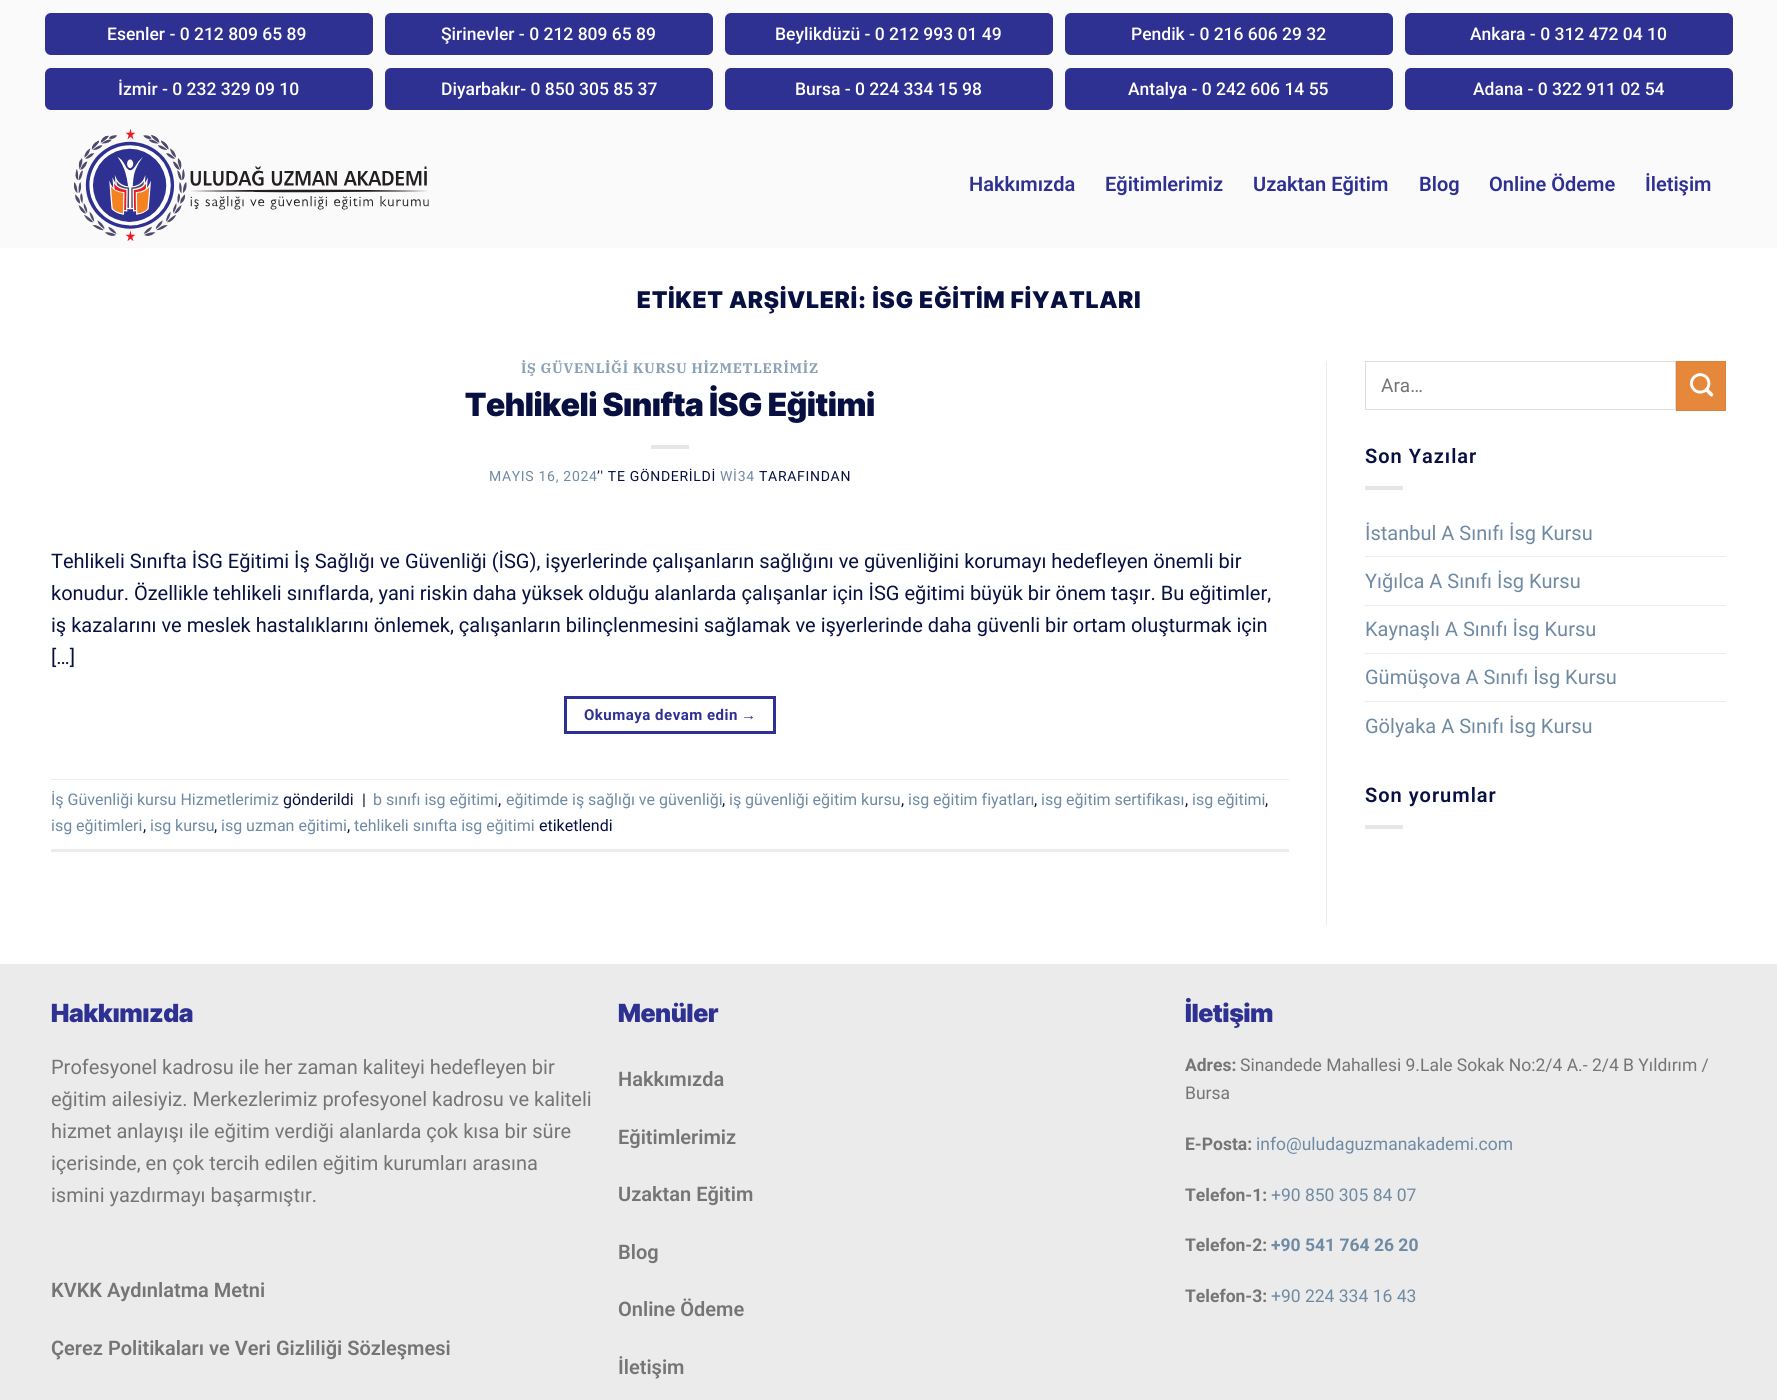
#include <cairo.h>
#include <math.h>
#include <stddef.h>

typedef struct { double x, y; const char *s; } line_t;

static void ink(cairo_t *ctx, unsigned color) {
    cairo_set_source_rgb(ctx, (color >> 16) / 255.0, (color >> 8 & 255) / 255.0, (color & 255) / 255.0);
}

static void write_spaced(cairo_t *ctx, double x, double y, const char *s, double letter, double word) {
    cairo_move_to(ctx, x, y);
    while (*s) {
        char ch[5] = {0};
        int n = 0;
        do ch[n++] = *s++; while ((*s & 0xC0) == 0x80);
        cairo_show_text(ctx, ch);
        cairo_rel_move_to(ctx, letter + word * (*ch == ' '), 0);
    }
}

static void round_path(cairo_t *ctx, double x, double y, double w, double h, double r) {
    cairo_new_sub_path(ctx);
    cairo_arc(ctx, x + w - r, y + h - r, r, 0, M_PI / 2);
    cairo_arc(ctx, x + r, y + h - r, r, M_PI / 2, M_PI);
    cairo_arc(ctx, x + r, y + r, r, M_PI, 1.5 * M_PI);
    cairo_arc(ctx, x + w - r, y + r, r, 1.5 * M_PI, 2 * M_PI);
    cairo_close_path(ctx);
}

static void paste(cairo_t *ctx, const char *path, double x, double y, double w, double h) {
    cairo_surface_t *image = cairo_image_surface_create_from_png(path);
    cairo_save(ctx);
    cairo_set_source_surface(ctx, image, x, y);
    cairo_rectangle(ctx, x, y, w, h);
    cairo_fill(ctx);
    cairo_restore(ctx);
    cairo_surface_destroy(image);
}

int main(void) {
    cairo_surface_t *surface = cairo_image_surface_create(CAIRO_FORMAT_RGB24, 1777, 1400);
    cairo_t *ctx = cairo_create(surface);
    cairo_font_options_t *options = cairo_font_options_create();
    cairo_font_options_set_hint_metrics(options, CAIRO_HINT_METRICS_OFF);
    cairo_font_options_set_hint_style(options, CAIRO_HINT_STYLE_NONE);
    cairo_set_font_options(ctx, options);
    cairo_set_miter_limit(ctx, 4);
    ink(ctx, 0xFFFFFF);
    cairo_paint(ctx);
    ink(ctx, 0xFAFAFA);
    cairo_rectangle(ctx, 0, 0, 1777, 248);
    cairo_fill(ctx);
    ink(ctx, 0x2E3192);
    round_path(ctx, 45, 13, 328, 42, 6);
    cairo_fill(ctx);
    cairo_select_font_face(ctx, "Roboto Medium", CAIRO_FONT_SLANT_NORMAL, CAIRO_FONT_WEIGHT_NORMAL);
    cairo_set_font_size(ctx, 17.5);
    ink(ctx, 0xFFFFFF);
    cairo_move_to(ctx, 107, 40);
    cairo_show_text(ctx, "Esenler - 0 212 809 65 89");
    ink(ctx, 0x2E3192);
    round_path(ctx, 385, 13, 328, 42, 6);
    cairo_fill(ctx);
    ink(ctx, 0xFFFFFF);
    cairo_move_to(ctx, 441, 40);
    cairo_show_text(ctx, "Şirinevler - 0 212 809 65 89");
    ink(ctx, 0x2E3192);
    round_path(ctx, 725, 13, 328, 42, 6);
    cairo_fill(ctx);
    ink(ctx, 0xFFFFFF);
    cairo_move_to(ctx, 775, 40);
    cairo_show_text(ctx, "Beylikdüzü - 0 212 993 01 49");
    ink(ctx, 0x2E3192);
    round_path(ctx, 1065, 13, 328, 42, 6);
    cairo_fill(ctx);
    ink(ctx, 0xFFFFFF);
    cairo_move_to(ctx, 1131, 40);
    cairo_show_text(ctx, "Pendik - 0 216 606 29 32");
    ink(ctx, 0x2E3192);
    round_path(ctx, 1405, 13, 328, 42, 6);
    cairo_fill(ctx);
    ink(ctx, 0xFFFFFF);
    cairo_move_to(ctx, 1470, 40);
    cairo_show_text(ctx, "Ankara - 0 312 472 04 10");
    ink(ctx, 0x2E3192);
    round_path(ctx, 45, 68, 328, 42, 6);
    cairo_fill(ctx);
    ink(ctx, 0xFFFFFF);
    cairo_move_to(ctx, 118, 95);
    cairo_show_text(ctx, "İzmir - 0 232 329 09 10");
    ink(ctx, 0x2E3192);
    round_path(ctx, 385, 68, 328, 42, 6);
    cairo_fill(ctx);
    ink(ctx, 0xFFFFFF);
    cairo_move_to(ctx, 441, 95);
    cairo_show_text(ctx, "Diyarbakır- 0 850 305 85 37");
    ink(ctx, 0x2E3192);
    round_path(ctx, 725, 68, 328, 42, 6);
    cairo_fill(ctx);
    ink(ctx, 0xFFFFFF);
    cairo_move_to(ctx, 795, 95);
    cairo_show_text(ctx, "Bursa - 0 224 334 15 98");
    ink(ctx, 0x2E3192);
    round_path(ctx, 1065, 68, 328, 42, 6);
    cairo_fill(ctx);
    ink(ctx, 0xFFFFFF);
    cairo_move_to(ctx, 1128, 95);
    cairo_show_text(ctx, "Antalya - 0 242 606 14 55");
    ink(ctx, 0x2E3192);
    round_path(ctx, 1405, 68, 328, 42, 6);
    cairo_fill(ctx);
    ink(ctx, 0xFFFFFF);
    cairo_move_to(ctx, 1473, 95);
    cairo_show_text(ctx, "Adana - 0 322 911 02 54");
    paste(ctx, "media/1.png", 74, 129, 355, 112);
    cairo_select_font_face(ctx, "Roboto SemiBold", CAIRO_FONT_SLANT_NORMAL, CAIRO_FONT_WEIGHT_NORMAL);
    cairo_set_font_size(ctx, 20);
    ink(ctx, 0x2E3192);
    {
        static const line_t items[] = {
            {969, 191, "Hakkımızda"},
            {1105, 191, "Eğitimlerimiz"},
            {1253, 191, "Uzaktan Eğitim"},
            {1419, 191, "Blog"},
            {1489, 191, "Online Ödeme"},
            {1645, 191, "İletişim"},
        };
        for (size_t i = 0; i < sizeof items / sizeof *items; i++) {
            cairo_move_to(ctx, items[i].x, items[i].y);
            cairo_show_text(ctx, items[i].s);
        }
    }
    cairo_select_font_face(ctx, "Inter Tight Black", CAIRO_FONT_SLANT_NORMAL, CAIRO_FONT_WEIGHT_NORMAL);
    cairo_set_font_size(ctx, 23);
    ink(ctx, 0x071041);
    write_spaced(ctx, 637, 308, "ETİKET ARŞİVLERİ: İSG EĞİTİM FİYATLARI", 1.15, 0);
    cairo_select_font_face(ctx, "IBM Plex Serif", CAIRO_FONT_SLANT_NORMAL, CAIRO_FONT_WEIGHT_BOLD);
    cairo_set_font_size(ctx, 14);
    ink(ctx, 0x8CA1B5);
    write_spaced(ctx, 521, 373, "İŞ GÜVENLİĞİ KURSU HİZMETLERİMİZ", 0.7, 0);
    cairo_select_font_face(ctx, "Inter Tight Black", CAIRO_FONT_SLANT_NORMAL, CAIRO_FONT_WEIGHT_NORMAL);
    cairo_set_font_size(ctx, 32);
    ink(ctx, 0x071041);
    cairo_move_to(ctx, 465, 416);
    cairo_show_text(ctx, "Tehlikeli Sınıfta İSG Eğitimi");
    ink(ctx, 0xE6E6E6);
    cairo_rectangle(ctx, 651, 445, 38, 4);
    cairo_fill(ctx);
    cairo_select_font_face(ctx, "Roboto", CAIRO_FONT_SLANT_NORMAL, CAIRO_FONT_WEIGHT_NORMAL);
    cairo_set_font_size(ctx, 14);
    ink(ctx, 0x6F8AA3);
    write_spaced(ctx, 489, 481, "MAYIS 16, 2024", 0.7, 0);
    ink(ctx, 0x071041);
    write_spaced(ctx, 597, 481, "’' TE GÖNDERİLDİ", 0.7, 0);
    ink(ctx, 0x6F8AA3);
    write_spaced(ctx, 720, 481, "Wİ34", 0.7, 0);
    ink(ctx, 0x071041);
    write_spaced(ctx, 759, 481, "TARAFINDAN", 0.7, 0);
    cairo_set_font_size(ctx, 20);
    {
        static const line_t items[] = {
            {51, 568, "Tehlikeli Sınıfta İSG Eğitimi İş Sağlığı ve Güvenliği (İSG), işyerlerinde çalışanların sağlığını ve güvenliğini korumayı hedefleyen önemli bir"},
            {51, 600, "konudur. Özellikle tehlikeli sınıflarda, yani riskin daha yüksek olduğu alanlarda çalışanlar için İSG eğitimi büyük bir önem taşır. Bu eğitimler,"},
            {51, 632, "iş kazalarını ve meslek hastalıklarını önlemek, çalışanların bilinçlenmesini sağlamak ve işyerlerinde daha güvenli bir ortam oluşturmak için"},
            {51, 664, "[…]"},
        };
        for (size_t i = 0; i < sizeof items / sizeof *items; i++) {
            cairo_move_to(ctx, items[i].x, items[i].y);
            cairo_show_text(ctx, items[i].s);
        }
    }
    cairo_rectangle(ctx, 565.5, 697.5, 209, 35);
    ink(ctx, 0x2E3192);
    cairo_set_line_width(ctx, 3);
    cairo_stroke(ctx);
    cairo_select_font_face(ctx, "Roboto", CAIRO_FONT_SLANT_NORMAL, CAIRO_FONT_WEIGHT_BOLD);
    cairo_set_font_size(ctx, 15);
    write_spaced(ctx, 584, 720, "Okumaya devam edin", 0.5, 0);
    cairo_select_font_face(ctx, "Liberation Sans", CAIRO_FONT_SLANT_NORMAL, CAIRO_FONT_WEIGHT_BOLD);
    write_spaced(ctx, 741, 720, "→", 0.5, 0);
    ink(ctx, 0xECECEC);
    cairo_rectangle(ctx, 51, 779, 1238, 1);
    cairo_fill(ctx);
    cairo_rectangle(ctx, 51, 849, 1238, 3);
    cairo_fill(ctx);
    cairo_select_font_face(ctx, "Roboto", CAIRO_FONT_SLANT_NORMAL, CAIRO_FONT_WEIGHT_NORMAL);
    cairo_set_font_size(ctx, 16);
    ink(ctx, 0x6F8AA3);
    cairo_move_to(ctx, 51, 805);
    cairo_show_text(ctx, "İş Güvenliği kursu Hizmetlerimiz");
    ink(ctx, 0x071041);
    cairo_move_to(ctx, 283, 805);
    cairo_show_text(ctx, "gönderildi");
    cairo_move_to(ctx, 362, 805);
    cairo_show_text(ctx, "|");
    ink(ctx, 0x6F8AA3);
    cairo_move_to(ctx, 373, 805);
    cairo_show_text(ctx, "b sınıfı isg eğitimi");
    ink(ctx, 0x071041);
    cairo_move_to(ctx, 498, 805);
    cairo_show_text(ctx, ",");
    ink(ctx, 0x6F8AA3);
    cairo_move_to(ctx, 506, 805);
    cairo_show_text(ctx, "eğitimde iş sağlığı ve güvenliği");
    ink(ctx, 0x071041);
    cairo_move_to(ctx, 722, 805);
    cairo_show_text(ctx, ",");
    ink(ctx, 0x6F8AA3);
    cairo_move_to(ctx, 729, 805);
    cairo_show_text(ctx, "iş güvenliği eğitim kursu");
    ink(ctx, 0x071041);
    cairo_move_to(ctx, 901, 805);
    cairo_show_text(ctx, ",");
    ink(ctx, 0x6F8AA3);
    cairo_move_to(ctx, 908, 805);
    cairo_show_text(ctx, "isg eğitim fiyatları");
    ink(ctx, 0x071041);
    cairo_move_to(ctx, 1034, 805);
    cairo_show_text(ctx, ",");
    ink(ctx, 0x6F8AA3);
    cairo_move_to(ctx, 1041, 805);
    cairo_show_text(ctx, "isg eğitim sertifikası");
    ink(ctx, 0x071041);
    cairo_move_to(ctx, 1185, 805);
    cairo_show_text(ctx, ",");
    ink(ctx, 0x6F8AA3);
    cairo_move_to(ctx, 1192, 805);
    cairo_show_text(ctx, "isg eğitimi");
    ink(ctx, 0x071041);
    cairo_move_to(ctx, 1265, 805);
    cairo_show_text(ctx, ",");
    ink(ctx, 0x6F8AA3);
    cairo_move_to(ctx, 51, 831);
    cairo_show_text(ctx, "isg eğitimleri");
    ink(ctx, 0x071041);
    cairo_move_to(ctx, 143, 831);
    cairo_show_text(ctx, ",");
    ink(ctx, 0x6F8AA3);
    cairo_move_to(ctx, 150, 831);
    cairo_show_text(ctx, "isg kursu");
    ink(ctx, 0x071041);
    cairo_move_to(ctx, 214, 831);
    cairo_show_text(ctx, ",");
    ink(ctx, 0x6F8AA3);
    cairo_move_to(ctx, 221, 831);
    cairo_show_text(ctx, "isg uzman eğitimi");
    ink(ctx, 0x071041);
    cairo_move_to(ctx, 347, 831);
    cairo_show_text(ctx, ",");
    ink(ctx, 0x6F8AA3);
    cairo_move_to(ctx, 354, 831);
    cairo_show_text(ctx, "tehlikeli sınıfta isg eğitimi");
    ink(ctx, 0x071041);
    cairo_move_to(ctx, 539, 831);
    cairo_show_text(ctx, "etiketlendi");
    ink(ctx, 0xECECEC);
    cairo_rectangle(ctx, 1326, 361, 1, 565);
    cairo_fill(ctx);
    cairo_rectangle(ctx, 1365.5, 361.5, 310, 48);
    ink(ctx, 0xDDDDDD);
    cairo_set_line_width(ctx, 1);
    cairo_stroke(ctx);
    cairo_set_font_size(ctx, 19);
    ink(ctx, 0x757575);
    cairo_move_to(ctx, 1381, 392);
    cairo_show_text(ctx, "Ara…");
    ink(ctx, 0xE6883B);
    cairo_rectangle(ctx, 1676.5, 361.5, 49, 49);
    cairo_fill_preserve(ctx);
    ink(ctx, 0xDB8138);
    cairo_stroke(ctx);
    paste(ctx, "media/2.png", 1690, 373, 24, 24);
    cairo_select_font_face(ctx, "Roboto SemiBold", CAIRO_FONT_SLANT_NORMAL, CAIRO_FONT_WEIGHT_NORMAL);
    cairo_set_font_size(ctx, 20);
    ink(ctx, 0x071041);
    write_spaced(ctx, 1365, 463, "Son Yazılar", 1, 0);
    ink(ctx, 0xE6E6E6);
    cairo_rectangle(ctx, 1365, 486, 38, 4);
    cairo_fill(ctx);
    cairo_select_font_face(ctx, "Roboto", CAIRO_FONT_SLANT_NORMAL, CAIRO_FONT_WEIGHT_NORMAL);
    ink(ctx, 0x6F8AA3);
    cairo_move_to(ctx, 1365, 540);
    cairo_show_text(ctx, "İstanbul A Sınıfı İsg Kursu");
    ink(ctx, 0xECECEC);
    cairo_rectangle(ctx, 1365, 556, 361, 1);
    cairo_fill(ctx);
    ink(ctx, 0x6F8AA3);
    cairo_move_to(ctx, 1365, 588);
    cairo_show_text(ctx, "Yığılca A Sınıfı İsg Kursu");
    ink(ctx, 0xECECEC);
    cairo_rectangle(ctx, 1365, 605, 361, 1);
    cairo_fill(ctx);
    ink(ctx, 0x6F8AA3);
    cairo_move_to(ctx, 1365, 636);
    cairo_show_text(ctx, "Kaynaşlı A Sınıfı İsg Kursu");
    ink(ctx, 0xECECEC);
    cairo_rectangle(ctx, 1365, 653, 361, 1);
    cairo_fill(ctx);
    ink(ctx, 0x6F8AA3);
    cairo_move_to(ctx, 1365, 684);
    cairo_show_text(ctx, "Gümüşova A Sınıfı İsg Kursu");
    ink(ctx, 0xECECEC);
    cairo_rectangle(ctx, 1365, 701, 361, 1);
    cairo_fill(ctx);
    ink(ctx, 0x6F8AA3);
    cairo_move_to(ctx, 1365, 733);
    cairo_show_text(ctx, "Gölyaka A Sınıfı İsg Kursu");
    cairo_select_font_face(ctx, "Roboto SemiBold", CAIRO_FONT_SLANT_NORMAL, CAIRO_FONT_WEIGHT_NORMAL);
    ink(ctx, 0x071041);
    write_spaced(ctx, 1365, 802, "Son yorumlar", 1, 0);
    ink(ctx, 0xE6E6E6);
    cairo_rectangle(ctx, 1365, 825, 38, 4);
    cairo_fill(ctx);
    ink(ctx, 0xEBEBEB);
    cairo_rectangle(ctx, 0, 964, 1777, 436);
    cairo_fill(ctx);
    cairo_select_font_face(ctx, "Inter Tight Black", CAIRO_FONT_SLANT_NORMAL, CAIRO_FONT_WEIGHT_NORMAL);
    cairo_set_font_size(ctx, 25);
    ink(ctx, 0x2E3192);
    cairo_move_to(ctx, 51, 1022);
    cairo_show_text(ctx, "Hakkımızda");
    cairo_select_font_face(ctx, "Roboto", CAIRO_FONT_SLANT_NORMAL, CAIRO_FONT_WEIGHT_NORMAL);
    cairo_set_font_size(ctx, 20);
    ink(ctx, 0x757575);
    {
        static const line_t items[] = {
            {51, 1074, "Profesyonel kadrosu ile her zaman kaliteyi hedefleyen bir"},
            {51, 1106, "eğitim ailesiyiz. Merkezlerimiz profesyonel kadrosu ve kaliteli"},
            {51, 1138, "hizmet anlayışı ile eğitim verdiği alanlarda çok kısa bir süre"},
            {51, 1170, "içerisinde, en çok tercih edilen eğitim kurumları arasına"},
            {51, 1202, "ismini yazdırmayı başarmıştır."},
        };
        for (size_t i = 0; i < sizeof items / sizeof *items; i++) {
            cairo_move_to(ctx, items[i].x, items[i].y);
            cairo_show_text(ctx, items[i].s);
        }
    }
    cairo_select_font_face(ctx, "Roboto SemiBold", CAIRO_FONT_SLANT_NORMAL, CAIRO_FONT_WEIGHT_NORMAL);
    cairo_move_to(ctx, 51, 1297);
    cairo_show_text(ctx, "KVKK Aydınlatma Metni");
    cairo_move_to(ctx, 51, 1355);
    cairo_show_text(ctx, "Çerez Politikaları ve Veri Gizliliği Sözleşmesi");
    cairo_select_font_face(ctx, "Inter Tight Black", CAIRO_FONT_SLANT_NORMAL, CAIRO_FONT_WEIGHT_NORMAL);
    cairo_set_font_size(ctx, 25);
    ink(ctx, 0x2E3192);
    cairo_move_to(ctx, 618, 1022);
    cairo_show_text(ctx, "Menüler");
    cairo_select_font_face(ctx, "Roboto SemiBold", CAIRO_FONT_SLANT_NORMAL, CAIRO_FONT_WEIGHT_NORMAL);
    cairo_set_font_size(ctx, 20);
    ink(ctx, 0x757575);
    {
        static const line_t items[] = {
            {618, 1086, "Hakkımızda"},
            {618, 1144, "Eğitimlerimiz"},
            {618, 1201, "Uzaktan Eğitim"},
            {618, 1259, "Blog"},
            {618, 1316, "Online Ödeme"},
            {618, 1374, "İletişim"},
        };
        for (size_t i = 0; i < sizeof items / sizeof *items; i++) {
            cairo_move_to(ctx, items[i].x, items[i].y);
            cairo_show_text(ctx, items[i].s);
        }
    }
    cairo_select_font_face(ctx, "Inter Tight Black", CAIRO_FONT_SLANT_NORMAL, CAIRO_FONT_WEIGHT_NORMAL);
    cairo_set_font_size(ctx, 25);
    ink(ctx, 0x2E3192);
    cairo_move_to(ctx, 1185, 1022);
    cairo_show_text(ctx, "İletişim");
    cairo_select_font_face(ctx, "Roboto", CAIRO_FONT_SLANT_NORMAL, CAIRO_FONT_WEIGHT_BOLD);
    cairo_set_font_size(ctx, 17.5);
    ink(ctx, 0x757575);
    cairo_move_to(ctx, 1185, 1071);
    cairo_show_text(ctx, "Adres:");
    cairo_select_font_face(ctx, "Roboto", CAIRO_FONT_SLANT_NORMAL, CAIRO_FONT_WEIGHT_NORMAL);
    cairo_move_to(ctx, 1240, 1071);
    cairo_show_text(ctx, "Sinandede Mahallesi 9.Lale Sokak No:2/4 A.- 2/4 B Yıldırım /");
    cairo_move_to(ctx, 1185, 1099);
    cairo_show_text(ctx, "Bursa");
    cairo_select_font_face(ctx, "Roboto", CAIRO_FONT_SLANT_NORMAL, CAIRO_FONT_WEIGHT_BOLD);
    cairo_move_to(ctx, 1185, 1150);
    cairo_show_text(ctx, "E-Posta:");
    cairo_select_font_face(ctx, "Roboto", CAIRO_FONT_SLANT_NORMAL, CAIRO_FONT_WEIGHT_NORMAL);
    ink(ctx, 0x6F8AA3);
    cairo_move_to(ctx, 1256, 1150);
    cairo_show_text(ctx, "info@uludaguzmanakademi.com");
    cairo_select_font_face(ctx, "Roboto", CAIRO_FONT_SLANT_NORMAL, CAIRO_FONT_WEIGHT_BOLD);
    ink(ctx, 0x757575);
    cairo_move_to(ctx, 1185, 1201);
    cairo_show_text(ctx, "Telefon-1:");
    cairo_select_font_face(ctx, "Roboto", CAIRO_FONT_SLANT_NORMAL, CAIRO_FONT_WEIGHT_NORMAL);
    ink(ctx, 0x6F8AA3);
    cairo_move_to(ctx, 1271, 1201);
    cairo_show_text(ctx, "+90 850 305 84 07");
    cairo_select_font_face(ctx, "Roboto", CAIRO_FONT_SLANT_NORMAL, CAIRO_FONT_WEIGHT_BOLD);
    ink(ctx, 0x757575);
    cairo_move_to(ctx, 1185, 1251);
    cairo_show_text(ctx, "Telefon-2:");
    ink(ctx, 0x6F8AA3);
    cairo_move_to(ctx, 1271, 1251);
    cairo_show_text(ctx, "+90 541 764 26 20");
    ink(ctx, 0x757575);
    cairo_move_to(ctx, 1185, 1302);
    cairo_show_text(ctx, "Telefon-3:");
    cairo_select_font_face(ctx, "Roboto", CAIRO_FONT_SLANT_NORMAL, CAIRO_FONT_WEIGHT_NORMAL);
    ink(ctx, 0x6F8AA3);
    cairo_move_to(ctx, 1271, 1302);
    cairo_show_text(ctx, "+90 224 334 16 43");
    cairo_surface_write_to_png(surface, "image.png");
    cairo_font_options_destroy(options);
    cairo_destroy(ctx);
    cairo_surface_destroy(surface);
    return 0;
}
